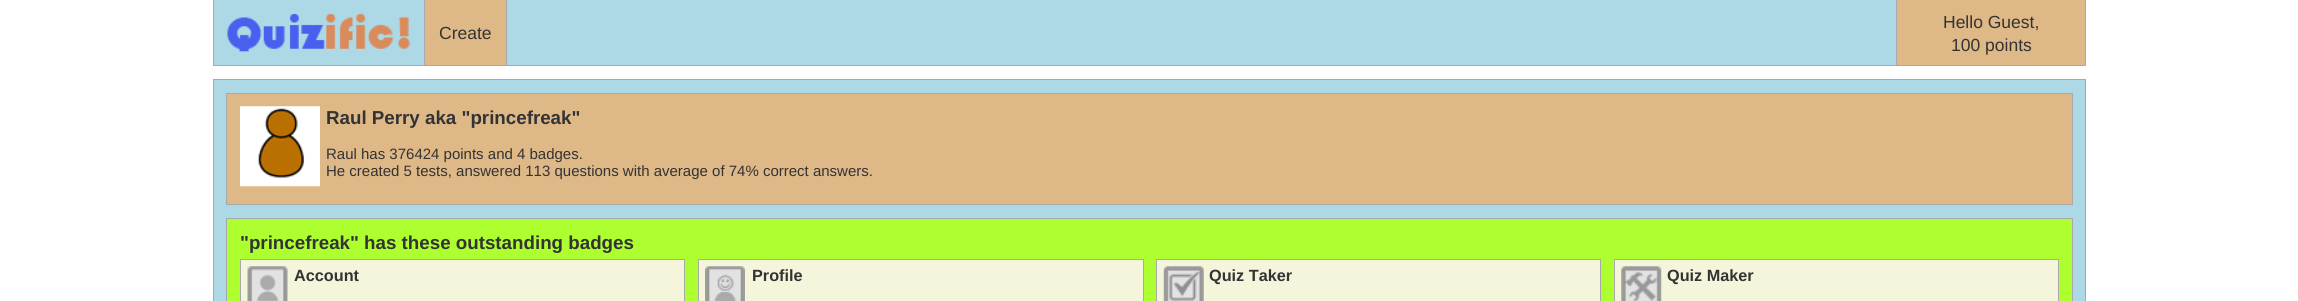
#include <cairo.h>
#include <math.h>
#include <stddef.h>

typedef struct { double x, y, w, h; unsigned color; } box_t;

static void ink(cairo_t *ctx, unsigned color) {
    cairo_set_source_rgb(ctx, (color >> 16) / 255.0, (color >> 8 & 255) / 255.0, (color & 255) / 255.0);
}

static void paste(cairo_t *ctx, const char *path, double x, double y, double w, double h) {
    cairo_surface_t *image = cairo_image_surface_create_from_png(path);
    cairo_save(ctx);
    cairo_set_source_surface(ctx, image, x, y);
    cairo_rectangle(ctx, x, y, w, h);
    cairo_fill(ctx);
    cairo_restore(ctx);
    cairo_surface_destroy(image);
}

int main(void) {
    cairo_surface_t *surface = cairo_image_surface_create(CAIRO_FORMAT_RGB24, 2298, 301);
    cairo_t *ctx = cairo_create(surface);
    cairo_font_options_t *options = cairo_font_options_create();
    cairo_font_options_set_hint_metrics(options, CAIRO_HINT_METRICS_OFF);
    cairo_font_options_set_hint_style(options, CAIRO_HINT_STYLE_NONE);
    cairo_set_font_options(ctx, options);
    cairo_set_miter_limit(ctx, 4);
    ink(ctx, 0xFFFFFF);
    cairo_paint(ctx);
    {
        static const box_t items[] = {
            {214, 0, 1682, 65, 0xADD8E6},
            {2085, 0, 1, 66, 0xA9A9A9},
            {213, 65, 1873, 1, 0xA9A9A9},
            {213, 0, 1, 66, 0xA9A9A9},
        };
        for (size_t i = 0; i < sizeof items / sizeof *items; i++) {
            ink(ctx, items[i].color);
            cairo_rectangle(ctx, items[i].x, items[i].y, items[i].w, items[i].h);
            cairo_fill(ctx);
        }
    }
    paste(ctx, "media/1.png", 227, 13, 184, 39);
    ink(ctx, 0xDEB887);
    cairo_rectangle(ctx, 425, 0, 81, 65);
    cairo_fill(ctx);
    ink(ctx, 0xA9A9A9);
    cairo_rectangle(ctx, 424, 0, 1, 65);
    cairo_fill(ctx);
    cairo_select_font_face(ctx, "Liberation Sans", CAIRO_FONT_SLANT_NORMAL, CAIRO_FONT_WEIGHT_NORMAL);
    cairo_set_font_size(ctx, 17.5);
    ink(ctx, 0x333333);
    cairo_move_to(ctx, 439, 39);
    cairo_show_text(ctx, "Create");
    {
        static const box_t items[] = {
            {506, 0, 1, 65, 0xA9A9A9},
            {1897, 0, 188, 65, 0xDEB887},
            {1896, 0, 1, 65, 0xA9A9A9},
        };
        for (size_t i = 0; i < sizeof items / sizeof *items; i++) {
            ink(ctx, items[i].color);
            cairo_rectangle(ctx, items[i].x, items[i].y, items[i].w, items[i].h);
            cairo_fill(ctx);
        }
    }
    ink(ctx, 0x333333);
    cairo_move_to(ctx, 1943, 28);
    cairo_show_text(ctx, "Hello Guest,");
    cairo_move_to(ctx, 1951, 51);
    cairo_show_text(ctx, "100 points");
    cairo_rectangle(ctx, 213.5, 79.5, 1872, 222);
    ink(ctx, 0xA9A9A9);
    cairo_set_line_width(ctx, 1);
    cairo_stroke(ctx);
    ink(ctx, 0xADD8E6);
    cairo_rectangle(ctx, 214, 80, 1871, 221);
    cairo_fill(ctx);
    ink(ctx, 0xDEB887);
    cairo_rectangle(ctx, 226.5, 93.5, 1846, 111);
    cairo_fill_preserve(ctx);
    ink(ctx, 0xA9A9A9);
    cairo_stroke(ctx);
    paste(ctx, "media/2.png", 240, 106, 80, 81);
    cairo_select_font_face(ctx, "Liberation Sans", CAIRO_FONT_SLANT_NORMAL, CAIRO_FONT_WEIGHT_BOLD);
    cairo_set_font_size(ctx, 18.75);
    ink(ctx, 0x333333);
    cairo_move_to(ctx, 326, 124);
    cairo_show_text(ctx, "Raul Perry aka \"princefreak\"");
    cairo_select_font_face(ctx, "Liberation Sans", CAIRO_FONT_SLANT_NORMAL, CAIRO_FONT_WEIGHT_NORMAL);
    cairo_set_font_size(ctx, 15);
    cairo_move_to(ctx, 326, 159);
    cairo_show_text(ctx, "Raul has 376424 points and 4 badges.");
    cairo_move_to(ctx, 326, 176);
    cairo_show_text(ctx, "He created 5 tests, answered 113 questions with average of 74% correct answers.");
    ink(ctx, 0xADFF2F);
    cairo_rectangle(ctx, 226.5, 218.5, 1846, 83);
    cairo_fill_preserve(ctx);
    ink(ctx, 0xA9A9A9);
    cairo_stroke(ctx);
    cairo_select_font_face(ctx, "Liberation Sans", CAIRO_FONT_SLANT_NORMAL, CAIRO_FONT_WEIGHT_BOLD);
    cairo_set_font_size(ctx, 18.75);
    ink(ctx, 0x333333);
    cairo_move_to(ctx, 240, 249);
    cairo_show_text(ctx, "\"princefreak\" has these outstanding badges");
    ink(ctx, 0xF5F5DC);
    cairo_rectangle(ctx, 240.5, 259.5, 444, 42);
    cairo_fill_preserve(ctx);
    ink(ctx, 0xA9A9A9);
    cairo_stroke(ctx);
    paste(ctx, "media/3.png", 247, 266, 41, 35);
    cairo_set_font_size(ctx, 16.25);
    ink(ctx, 0x333333);
    cairo_move_to(ctx, 294, 281);
    cairo_show_text(ctx, "Account");
    ink(ctx, 0xF5F5DC);
    cairo_rectangle(ctx, 698.5, 259.5, 445, 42);
    cairo_fill_preserve(ctx);
    ink(ctx, 0xA9A9A9);
    cairo_stroke(ctx);
    paste(ctx, "media/4.png", 705, 266, 40, 35);
    ink(ctx, 0x333333);
    cairo_move_to(ctx, 752, 281);
    cairo_show_text(ctx, "Profile");
    ink(ctx, 0xF5F5DC);
    cairo_rectangle(ctx, 1156.5, 259.5, 444, 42);
    cairo_fill_preserve(ctx);
    ink(ctx, 0xA9A9A9);
    cairo_stroke(ctx);
    paste(ctx, "media/5.png", 1163, 266, 41, 35);
    ink(ctx, 0x333333);
    cairo_move_to(ctx, 1209, 281);
    cairo_show_text(ctx, "Quiz Taker");
    ink(ctx, 0xF5F5DC);
    cairo_rectangle(ctx, 1614.5, 259.5, 444, 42);
    cairo_fill_preserve(ctx);
    ink(ctx, 0xA9A9A9);
    cairo_stroke(ctx);
    paste(ctx, "media/6.png", 1621, 266, 41, 35);
    ink(ctx, 0x333333);
    cairo_move_to(ctx, 1667, 281);
    cairo_show_text(ctx, "Quiz Maker");
    cairo_surface_write_to_png(surface, "image.png");
    cairo_font_options_destroy(options);
    cairo_destroy(ctx);
    cairo_surface_destroy(surface);
    return 0;
}
